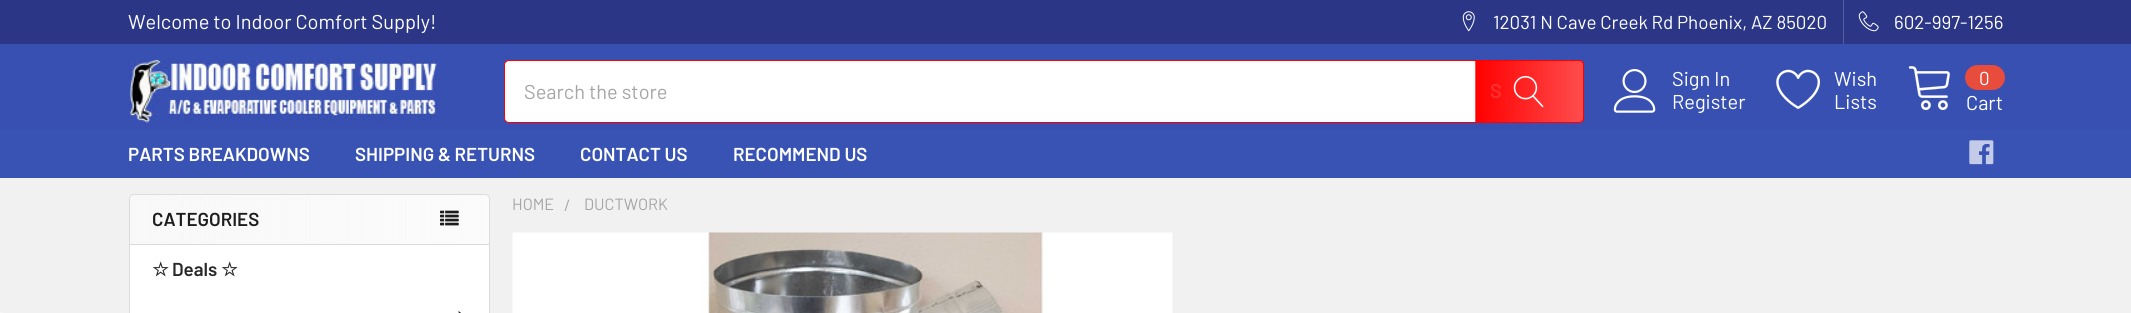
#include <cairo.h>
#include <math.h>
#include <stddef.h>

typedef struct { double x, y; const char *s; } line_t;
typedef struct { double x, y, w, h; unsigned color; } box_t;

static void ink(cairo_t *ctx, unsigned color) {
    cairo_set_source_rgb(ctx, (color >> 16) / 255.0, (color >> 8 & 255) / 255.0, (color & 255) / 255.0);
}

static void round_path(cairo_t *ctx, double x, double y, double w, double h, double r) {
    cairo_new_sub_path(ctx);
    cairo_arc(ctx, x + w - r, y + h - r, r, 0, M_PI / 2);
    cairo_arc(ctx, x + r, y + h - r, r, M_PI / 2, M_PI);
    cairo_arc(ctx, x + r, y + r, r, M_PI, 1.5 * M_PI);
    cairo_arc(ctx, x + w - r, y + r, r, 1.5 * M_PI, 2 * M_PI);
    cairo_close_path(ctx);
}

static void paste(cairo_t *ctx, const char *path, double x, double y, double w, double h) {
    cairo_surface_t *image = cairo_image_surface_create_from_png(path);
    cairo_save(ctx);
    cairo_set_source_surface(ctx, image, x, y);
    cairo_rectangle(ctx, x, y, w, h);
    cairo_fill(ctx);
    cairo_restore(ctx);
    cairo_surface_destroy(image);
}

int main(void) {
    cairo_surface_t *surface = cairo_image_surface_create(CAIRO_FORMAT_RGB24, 2131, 313);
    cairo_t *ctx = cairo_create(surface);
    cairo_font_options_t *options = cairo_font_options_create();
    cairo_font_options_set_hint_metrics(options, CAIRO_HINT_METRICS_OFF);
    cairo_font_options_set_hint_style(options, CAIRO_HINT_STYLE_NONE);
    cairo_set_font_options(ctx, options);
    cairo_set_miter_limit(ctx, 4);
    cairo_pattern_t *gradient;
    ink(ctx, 0xF1F1F2);
    cairo_paint(ctx);
    {
        static const box_t items[] = {
            {0, 45, 2131, 85, 0x3750B2},
            {0, 0, 2131, 44, 0x2B3687},
            {0, 44, 2131, 1, 0x384FB2},
        };
        for (size_t i = 0; i < sizeof items / sizeof *items; i++) {
            ink(ctx, items[i].color);
            cairo_rectangle(ctx, items[i].x, items[i].y, items[i].w, items[i].h);
            cairo_fill(ctx);
        }
    }
    cairo_select_font_face(ctx, "Barlow", CAIRO_FONT_SLANT_NORMAL, CAIRO_FONT_WEIGHT_NORMAL);
    cairo_set_font_size(ctx, 20);
    ink(ctx, 0xFFFFFF);
    cairo_move_to(ctx, 128, 29);
    cairo_show_text(ctx, "Welcome to Indoor Comfort Supply!");
    paste(ctx, "media/1.png", 1462, 11, 13, 21);
    cairo_set_font_size(ctx, 18.75);
    cairo_move_to(ctx, 1493, 29);
    cairo_show_text(ctx, "12031 N Cave Creek Rd Phoenix, AZ 85020");
    ink(ctx, 0x555E9F);
    cairo_rectangle(ctx, 1843, 0, 1, 44);
    cairo_fill(ctx);
    paste(ctx, "media/2.png", 1858, 11, 21, 21);
    ink(ctx, 0xFFFFFF);
    cairo_move_to(ctx, 1894, 29);
    cairo_show_text(ctx, "602-997-1256");
    paste(ctx, "media/3.png", 128, 60, 311, 63);
    round_path(ctx, 504.5, 60.5, 1079, 62, 4.5);
    cairo_fill_preserve(ctx);
    ink(ctx, 0xFF0000);
    cairo_set_line_width(ctx, 1);
    cairo_stroke(ctx);
    cairo_set_font_size(ctx, 20);
    ink(ctx, 0xA5A5A5);
    cairo_move_to(ctx, 524, 99);
    cairo_show_text(ctx, "Search the store");
    cairo_save(ctx);
    cairo_new_path(ctx);
    cairo_move_to(ctx, 1475, 60);
    cairo_line_to(ctx, 1579, 60);
    cairo_curve_to(ctx, 1582, 60, 1584, 62, 1584, 65);
    cairo_line_to(ctx, 1584, 118);
    cairo_curve_to(ctx, 1584, 121, 1582, 123, 1579, 123);
    cairo_line_to(ctx, 1475, 123);
    cairo_close_path(ctx);
    cairo_clip(ctx);
    gradient = cairo_pattern_create_linear(1476, 91, 1583, 91);
    cairo_pattern_add_color_stop_rgba(gradient, 0, 1, 0, 0, 1);
    cairo_pattern_add_color_stop_rgba(gradient, 1, 1, 0, 0, 0.7);
    cairo_set_source(ctx, gradient);
    cairo_pattern_destroy(gradient);
    cairo_rectangle(ctx, 1476, 60, 107, 63);
    cairo_fill(ctx);
    cairo_restore(ctx);
    cairo_select_font_face(ctx, "Barlow SemiBold", CAIRO_FONT_SLANT_NORMAL, CAIRO_FONT_WEIGHT_NORMAL);
    ink(ctx, 0xFF2E2E);
    cairo_move_to(ctx, 1490, 98);
    cairo_show_text(ctx, "S");
    gradient = cairo_pattern_create_linear(1370, 91, 1476, 91);
    cairo_pattern_add_color_stop_rgba(gradient, 0, 1, 0, 0, 1);
    cairo_pattern_add_color_stop_rgba(gradient, 1, 1, 0, 0, 0.7);
    cairo_set_source(ctx, gradient);
    cairo_pattern_destroy(gradient);
    cairo_rectangle(ctx, 1475, 60, 1, 63);
    cairo_fill(ctx);
    cairo_save(ctx);
    cairo_new_path(ctx);
    cairo_move_to(ctx, 1475, 60);
    cairo_line_to(ctx, 1579, 60);
    cairo_curve_to(ctx, 1582, 60, 1584, 62, 1584, 65);
    cairo_line_to(ctx, 1584, 118);
    cairo_curve_to(ctx, 1584, 121, 1582, 123, 1579, 123);
    cairo_line_to(ctx, 1475, 123);
    cairo_close_path(ctx);
    cairo_clip(ctx);
    gradient = cairo_pattern_create_linear(1583, 91, 1689, 91);
    cairo_pattern_add_color_stop_rgba(gradient, 0, 1, 0, 0, 1);
    cairo_pattern_add_color_stop_rgba(gradient, 1, 1, 0, 0, 0.7);
    cairo_set_source(ctx, gradient);
    cairo_pattern_destroy(gradient);
    cairo_rectangle(ctx, 1583, 60, 1, 63);
    cairo_fill(ctx);
    cairo_restore(ctx);
    paste(ctx, "media/4.png", 1513, 76, 31, 32);
    paste(ctx, "media/5.png", 1613, 69, 43, 44);
    cairo_select_font_face(ctx, "Barlow", CAIRO_FONT_SLANT_NORMAL, CAIRO_FONT_WEIGHT_NORMAL);
    ink(ctx, 0xFFFFFF);
    cairo_move_to(ctx, 1672, 86);
    cairo_show_text(ctx, "Sign In");
    cairo_move_to(ctx, 1672, 109);
    cairo_show_text(ctx, "Register");
    paste(ctx, "media/6.png", 1776, 69, 44, 40);
    cairo_move_to(ctx, 1834, 86);
    cairo_show_text(ctx, "Wish");
    cairo_move_to(ctx, 1834, 109);
    cairo_show_text(ctx, "Lists");
    paste(ctx, "media/7.png", 1908, 66, 42, 44);
    ink(ctx, 0xE74C3C);
    round_path(ctx, 1965, 65, 40, 25, 12.5);
    cairo_fill(ctx);
    cairo_set_font_size(ctx, 18.75);
    ink(ctx, 0xFFFFFF);
    cairo_move_to(ctx, 1979, 85);
    cairo_show_text(ctx, "0");
    cairo_set_font_size(ctx, 20);
    cairo_move_to(ctx, 1966, 110);
    cairo_show_text(ctx, "Cart");
    ink(ctx, 0x3853B4);
    cairo_rectangle(ctx, 0, 130, 2131, 48);
    cairo_fill(ctx);
    cairo_select_font_face(ctx, "Barlow SemiBold", CAIRO_FONT_SLANT_NORMAL, CAIRO_FONT_WEIGHT_NORMAL);
    cairo_set_font_size(ctx, 18.75);
    ink(ctx, 0xFFFFFF);
    {
        static const line_t items[] = {
            {128, 161, "PARTS BREAKDOWNS"},
            {355, 161, "SHIPPING & RETURNS"},
            {580, 161, "CONTACT US"},
            {733, 161, "RECOMMEND US"},
        };
        for (size_t i = 0; i < sizeof items / sizeof *items; i++) {
            cairo_move_to(ctx, items[i].x, items[i].y);
            cairo_show_text(ctx, items[i].s);
        }
    }
    paste(ctx, "media/8.png", 1969, 140, 25, 25);
    cairo_select_font_face(ctx, "Barlow", CAIRO_FONT_SLANT_NORMAL, CAIRO_FONT_WEIGHT_NORMAL);
    cairo_set_font_size(ctx, 16.25);
    ink(ctx, 0xA5A5A5);
    {
        static const line_t items[] = {
            {512, 210, "HOME"},
            {564, 211, "/"},
            {584, 210, "DUCTWORK"},
        };
        for (size_t i = 0; i < sizeof items / sizeof *items; i++) {
            cairo_move_to(ctx, items[i].x, items[i].y);
            cairo_show_text(ctx, items[i].s);
        }
    }
    paste(ctx, "media/9.png", 512, 232, 661, 81);
    ink(ctx, 0xFFFFFF);
    round_path(ctx, 129, 194, 361, 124, 5);
    cairo_fill(ctx);
    gradient = cairo_pattern_create_linear(129, 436, 490, 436);
    cairo_pattern_add_color_stop_rgba(gradient, 0, 0.973, 0.973, 0.973, 1);
    cairo_pattern_add_color_stop_rgba(gradient, 1, 0.973, 0.973, 0.973, 0.6);
    cairo_set_source(ctx, gradient);
    cairo_pattern_destroy(gradient);
    round_path(ctx, 129, 194, 361, 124, 5);
    cairo_fill(ctx);
    cairo_new_path(ctx);
    cairo_move_to(ctx, 134, 194.5);
    cairo_line_to(ctx, 485, 194.5);
    cairo_curve_to(ctx, 487.5, 194.5, 489.5, 196.5, 489.5, 199);
    cairo_line_to(ctx, 489.5, 244.5);
    cairo_line_to(ctx, 129.5, 244.5);
    cairo_line_to(ctx, 129.5, 199);
    cairo_curve_to(ctx, 129.5, 196.5, 131.5, 194.5, 134, 194.5);
    cairo_close_path(ctx);
    ink(ctx, 0xDCDCDC);
    cairo_stroke(ctx);
    cairo_select_font_face(ctx, "Barlow SemiBold", CAIRO_FONT_SLANT_NORMAL, CAIRO_FONT_WEIGHT_NORMAL);
    cairo_set_font_size(ctx, 18.75);
    ink(ctx, 0x1D1D1D);
    cairo_move_to(ctx, 152, 226);
    cairo_show_text(ctx, "CATEGORIES");
    paste(ctx, "media/10.png", 440, 210, 19, 16);
    ink(ctx, 0xFFFFFF);
    cairo_rectangle(ctx, 130, 245, 359, 68);
    cairo_fill(ctx);
    ink(ctx, 0xDCDCDC);
    cairo_set_fill_rule(ctx, CAIRO_FILL_RULE_EVEN_ODD);
    cairo_new_path(ctx);
    cairo_move_to(ctx, 129, 245);
    cairo_line_to(ctx, 490, 245);
    cairo_line_to(ctx, 490, 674);
    cairo_curve_to(ctx, 490, 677, 488, 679, 485, 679);
    cairo_line_to(ctx, 134, 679);
    cairo_curve_to(ctx, 131, 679, 129, 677, 129, 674);
    cairo_close_path(ctx);
    cairo_move_to(ctx, 130, 245);
    cairo_line_to(ctx, 489, 245);
    cairo_line_to(ctx, 489, 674);
    cairo_curve_to(ctx, 489, 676, 487, 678, 485, 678);
    cairo_line_to(ctx, 134, 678);
    cairo_curve_to(ctx, 132, 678, 130, 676, 130, 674);
    cairo_close_path(ctx);
    cairo_fill(ctx);
    cairo_select_font_face(ctx, "DejaVu Sans", CAIRO_FONT_SLANT_NORMAL, CAIRO_FONT_WEIGHT_BOLD);
    ink(ctx, 0x282828);
    cairo_move_to(ctx, 152, 276);
    cairo_show_text(ctx, "☆");
    cairo_select_font_face(ctx, "Barlow SemiBold", CAIRO_FONT_SLANT_NORMAL, CAIRO_FONT_WEIGHT_NORMAL);
    cairo_move_to(ctx, 172, 276);
    cairo_show_text(ctx, "Deals");
    cairo_select_font_face(ctx, "DejaVu Sans", CAIRO_FONT_SLANT_NORMAL, CAIRO_FONT_WEIGHT_BOLD);
    cairo_move_to(ctx, 221, 276);
    cairo_show_text(ctx, "☆");
    paste(ctx, "media/11.png", 458, 311, 3, 2);
    ink(ctx, 0xF5F5F5);
    cairo_rectangle(ctx, 0, 311, 3, 2);
    cairo_fill(ctx);
    cairo_surface_write_to_png(surface, "image.png");
    cairo_font_options_destroy(options);
    cairo_destroy(ctx);
    cairo_surface_destroy(surface);
    return 0;
}
